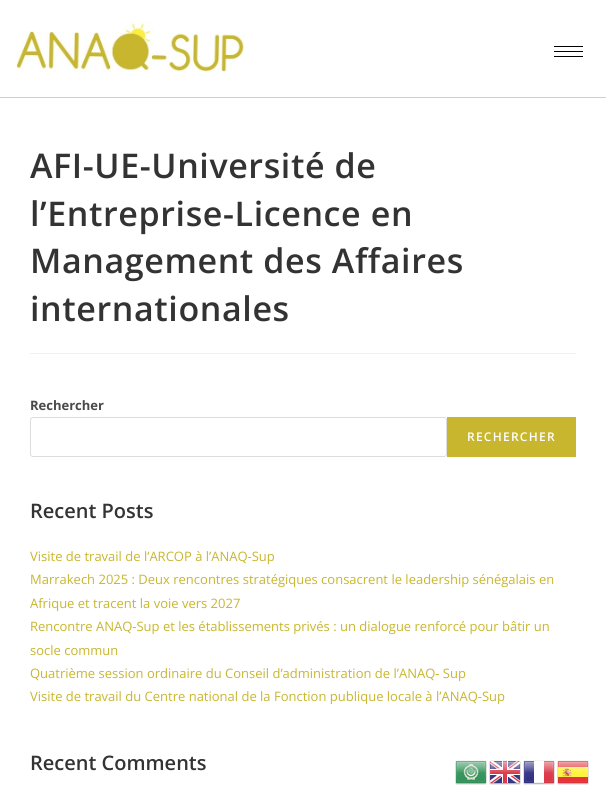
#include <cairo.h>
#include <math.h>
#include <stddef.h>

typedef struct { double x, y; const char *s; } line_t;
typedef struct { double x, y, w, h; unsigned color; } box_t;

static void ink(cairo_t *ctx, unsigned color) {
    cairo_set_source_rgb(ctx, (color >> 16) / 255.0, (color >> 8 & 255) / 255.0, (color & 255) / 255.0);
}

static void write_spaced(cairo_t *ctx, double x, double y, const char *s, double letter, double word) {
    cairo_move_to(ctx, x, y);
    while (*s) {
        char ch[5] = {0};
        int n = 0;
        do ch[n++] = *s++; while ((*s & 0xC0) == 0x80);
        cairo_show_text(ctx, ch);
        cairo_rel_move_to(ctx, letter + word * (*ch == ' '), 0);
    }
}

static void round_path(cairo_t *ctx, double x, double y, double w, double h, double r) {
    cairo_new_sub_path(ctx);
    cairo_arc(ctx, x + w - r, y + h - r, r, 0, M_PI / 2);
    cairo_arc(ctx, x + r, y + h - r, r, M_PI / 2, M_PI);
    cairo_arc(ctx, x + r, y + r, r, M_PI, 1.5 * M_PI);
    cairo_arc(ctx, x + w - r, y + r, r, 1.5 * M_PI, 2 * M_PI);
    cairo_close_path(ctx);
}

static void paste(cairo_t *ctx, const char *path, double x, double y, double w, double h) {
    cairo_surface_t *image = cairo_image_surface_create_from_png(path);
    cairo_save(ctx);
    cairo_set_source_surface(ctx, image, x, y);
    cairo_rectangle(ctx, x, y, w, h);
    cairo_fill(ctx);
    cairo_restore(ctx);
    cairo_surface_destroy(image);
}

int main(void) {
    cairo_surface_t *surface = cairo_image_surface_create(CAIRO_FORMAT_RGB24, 606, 803);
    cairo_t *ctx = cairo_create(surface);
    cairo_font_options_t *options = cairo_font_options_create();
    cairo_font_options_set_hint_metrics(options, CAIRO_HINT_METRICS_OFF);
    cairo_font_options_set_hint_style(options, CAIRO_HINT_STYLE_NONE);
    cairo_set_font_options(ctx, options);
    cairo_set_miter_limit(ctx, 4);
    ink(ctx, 0xFFFFFF);
    cairo_paint(ctx);
    paste(ctx, "media/1.png", 16, 22, 229, 51);
    {
        static const box_t items[] = {
            {554, 46, 29, 1, 0x000000},
            {554, 51, 29, 1, 0x000000},
            {554, 56, 29, 1, 0x000000},
            {0, 97, 606, 1, 0xCECECE},
            {30, 353, 546, 1, 0xF1F1F1},
        };
        for (size_t i = 0; i < sizeof items / sizeof *items; i++) {
            ink(ctx, items[i].color);
            cairo_rectangle(ctx, items[i].x, items[i].y, items[i].w, items[i].h);
            cairo_fill(ctx);
        }
    }
    cairo_select_font_face(ctx, "Open Sans SemiBold", CAIRO_FONT_SLANT_NORMAL, CAIRO_FONT_WEIGHT_NORMAL);
    cairo_set_font_size(ctx, 34);
    ink(ctx, 0x333333);
    {
        static const line_t items[] = {
            {30, 178, "AFI-UE-Université de"},
            {30, 226, "l’Entreprise-Licence en"},
            {30, 273, "Management des Affaires"},
            {30, 321, "internationales"},
        };
        for (size_t i = 0; i < sizeof items / sizeof *items; i++) {
            write_spaced(ctx, items[i].x, items[i].y, items[i].s, 0.6, 0);
        }
    }
    cairo_select_font_face(ctx, "Open Sans", CAIRO_FONT_SLANT_NORMAL, CAIRO_FONT_WEIGHT_BOLD);
    cairo_set_font_size(ctx, 13);
    ink(ctx, 0x4A4A4A);
    cairo_move_to(ctx, 30, 410);
    cairo_show_text(ctx, "Rechercher");
    round_path(ctx, 30.5, 417.5, 416, 39, 2.5);
    ink(ctx, 0xDDDDDD);
    cairo_set_line_width(ctx, 1);
    cairo_stroke(ctx);
    ink(ctx, 0xC8B62E);
    cairo_rectangle(ctx, 447, 417, 129, 40);
    cairo_fill(ctx);
    cairo_select_font_face(ctx, "Open Sans SemiBold", CAIRO_FONT_SLANT_NORMAL, CAIRO_FONT_WEIGHT_NORMAL);
    cairo_set_font_size(ctx, 12);
    ink(ctx, 0xFFFFFF);
    write_spaced(ctx, 467, 441, "RECHERCHER", 1.25, 0);
    cairo_set_font_size(ctx, 20);
    ink(ctx, 0x333333);
    cairo_move_to(ctx, 30, 518);
    cairo_show_text(ctx, "Recent Posts");
    cairo_select_font_face(ctx, "Open Sans", CAIRO_FONT_SLANT_NORMAL, CAIRO_FONT_WEIGHT_NORMAL);
    cairo_set_font_size(ctx, 13);
    ink(ctx, 0xC8B62E);
    {
        static const line_t items[] = {
            {30, 561, "Visite de travail de l’ARCOP à l’ANAQ-Sup"},
            {30, 584, "Marrakech 2025 : Deux rencontres stratégiques consacrent le leadership sénégalais en"},
            {30, 608, "Afrique et tracent la voie vers 2027"},
            {30, 631, "Rencontre ANAQ-Sup et les établissements privés : un dialogue renforcé pour bâtir un"},
            {30, 655, "socle commun"},
            {30, 678, "Quatrième session ordinaire du Conseil d’administration de l’ANAQ- Sup"},
            {30, 701, "Visite de travail du Centre national de la Fonction publique locale à l’ANAQ-Sup"},
        };
        for (size_t i = 0; i < sizeof items / sizeof *items; i++) {
            cairo_move_to(ctx, items[i].x, items[i].y);
            cairo_show_text(ctx, items[i].s);
        }
    }
    cairo_select_font_face(ctx, "Open Sans SemiBold", CAIRO_FONT_SLANT_NORMAL, CAIRO_FONT_WEIGHT_NORMAL);
    cairo_set_font_size(ctx, 20);
    ink(ctx, 0x333333);
    cairo_move_to(ctx, 30, 770);
    cairo_show_text(ctx, "Recent Comments");
    paste(ctx, "media/2.png", 455, 760, 32, 25);
    paste(ctx, "media/3.png", 489, 760, 32, 25);
    paste(ctx, "media/4.png", 523, 760, 32, 25);
    paste(ctx, "media/5.png", 557, 760, 32, 25);
    cairo_surface_write_to_png(surface, "image.png");
    cairo_font_options_destroy(options);
    cairo_destroy(ctx);
    cairo_surface_destroy(surface);
    return 0;
}
